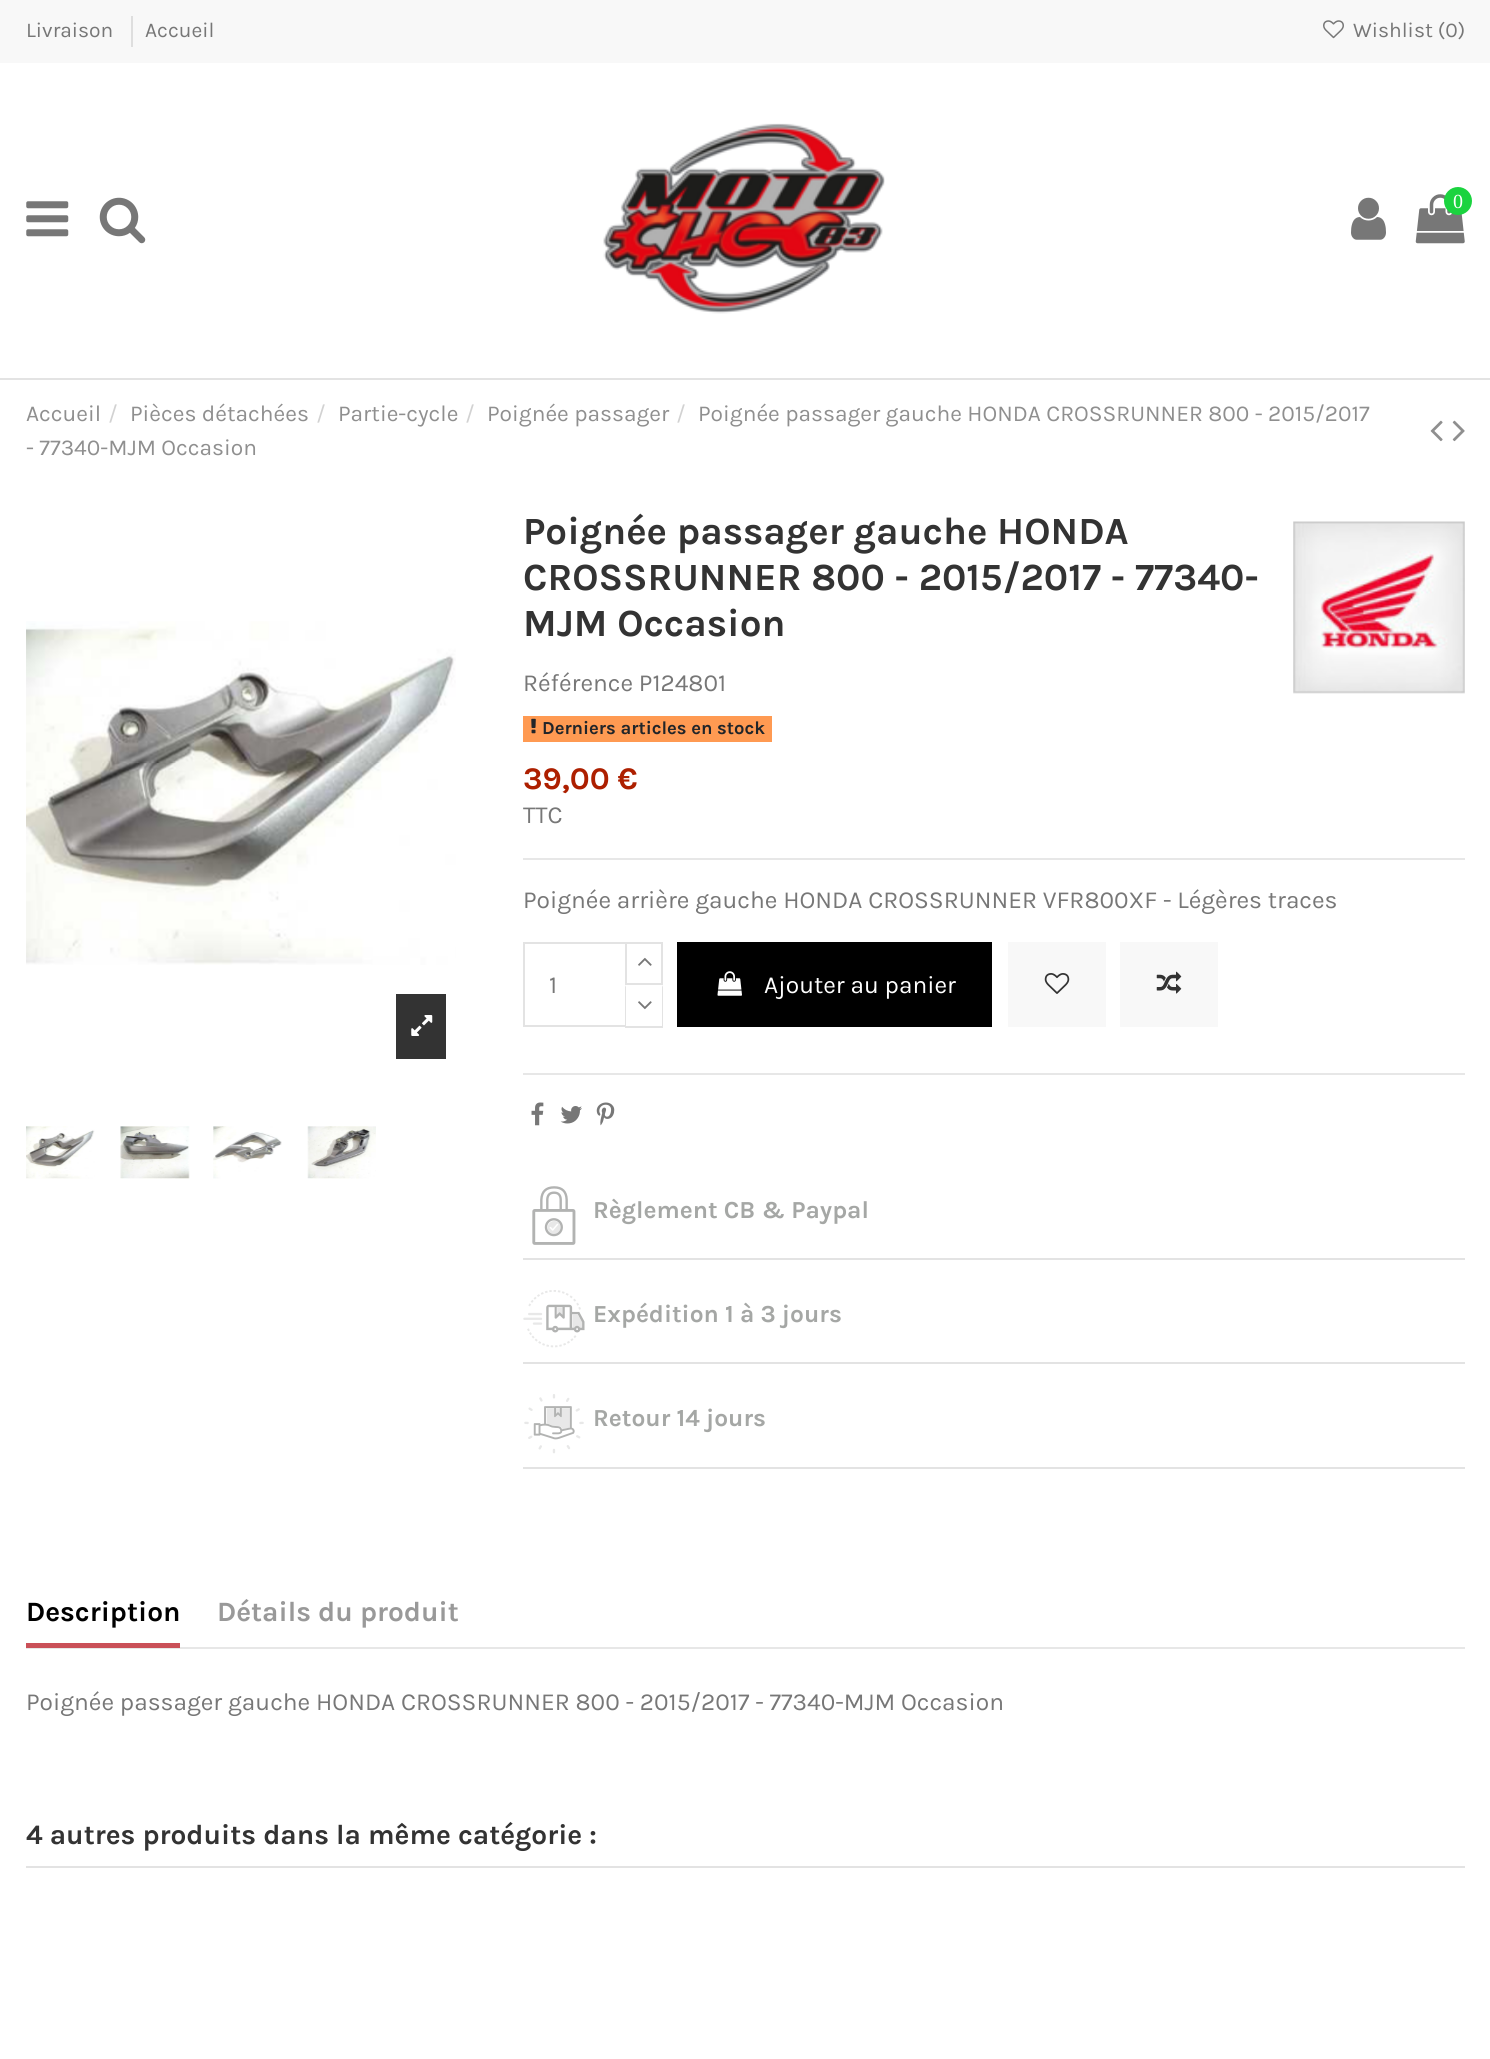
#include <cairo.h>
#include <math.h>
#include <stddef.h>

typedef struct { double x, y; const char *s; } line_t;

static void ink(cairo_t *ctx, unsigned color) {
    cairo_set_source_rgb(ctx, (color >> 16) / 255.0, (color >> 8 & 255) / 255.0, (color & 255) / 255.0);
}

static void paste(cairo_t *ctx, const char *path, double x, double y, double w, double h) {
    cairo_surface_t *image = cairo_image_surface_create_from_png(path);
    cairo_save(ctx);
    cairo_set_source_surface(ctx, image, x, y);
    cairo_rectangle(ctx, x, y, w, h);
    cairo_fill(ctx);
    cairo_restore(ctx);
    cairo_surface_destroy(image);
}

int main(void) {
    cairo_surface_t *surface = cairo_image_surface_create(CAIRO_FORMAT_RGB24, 1490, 2059);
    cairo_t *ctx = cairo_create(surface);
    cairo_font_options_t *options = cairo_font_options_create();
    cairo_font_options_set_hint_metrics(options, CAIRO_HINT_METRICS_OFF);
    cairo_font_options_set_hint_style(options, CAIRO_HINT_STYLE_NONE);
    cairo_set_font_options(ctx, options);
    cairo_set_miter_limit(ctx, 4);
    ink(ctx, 0xFFFFFF);
    cairo_paint(ctx);
    ink(ctx, 0xF8F8F8);
    cairo_rectangle(ctx, 0, 0, 1490, 63);
    cairo_fill(ctx);
    cairo_select_font_face(ctx, "Karla", CAIRO_FONT_SLANT_NORMAL, CAIRO_FONT_WEIGHT_NORMAL);
    cairo_set_font_size(ctx, 21);
    ink(ctx, 0x777777);
    cairo_move_to(ctx, 26, 37);
    cairo_show_text(ctx, "Livraison");
    ink(ctx, 0xDEDEDE);
    cairo_rectangle(ctx, 131, 16, 2, 31);
    cairo_fill(ctx);
    ink(ctx, 0x777777);
    cairo_move_to(ctx, 145, 37);
    cairo_show_text(ctx, "Accueil");
    paste(ctx, "media/1.png", 1323, 20, 21, 19);
    cairo_move_to(ctx, 1353, 37);
    cairo_show_text(ctx, "Wishlist (0)");
    ink(ctx, 0xE3E3E3);
    cairo_rectangle(ctx, 0, 378, 1490, 2);
    cairo_fill(ctx);
    paste(ctx, "media/2.png", 26, 201, 43, 36);
    paste(ctx, "media/3.png", 99, 197, 47, 47);
    paste(ctx, "media/4.png", 603, 123, 282, 191);
    paste(ctx, "media/5.png", 1351, 197, 35, 43);
    paste(ctx, "media/6.png", 1415, 194, 50, 50);
    ink(ctx, 0x1BD33F);
    cairo_arc(ctx, 1458, 201, 14, 0, 2 * M_PI);
    cairo_fill(ctx);
    cairo_select_font_face(ctx, "Liberation Serif", CAIRO_FONT_SLANT_NORMAL, CAIRO_FONT_WEIGHT_NORMAL);
    cairo_set_font_size(ctx, 20);
    ink(ctx, 0xFFFFFF);
    cairo_move_to(ctx, 1453, 208);
    cairo_show_text(ctx, "0");
    cairo_select_font_face(ctx, "Karla", CAIRO_FONT_SLANT_NORMAL, CAIRO_FONT_WEIGHT_NORMAL);
    cairo_set_font_size(ctx, 22.75);
    ink(ctx, 0x8F8F8F);
    cairo_move_to(ctx, 26, 421);
    cairo_show_text(ctx, "Accueil");
    ink(ctx, 0xD2D2D2);
    cairo_move_to(ctx, 108, 421);
    cairo_show_text(ctx, "/");
    ink(ctx, 0x8F8F8F);
    cairo_move_to(ctx, 130, 421);
    cairo_show_text(ctx, "Pièces détachées");
    ink(ctx, 0xD2D2D2);
    cairo_move_to(ctx, 316, 421);
    cairo_show_text(ctx, "/");
    ink(ctx, 0x8F8F8F);
    cairo_move_to(ctx, 338, 421);
    cairo_show_text(ctx, "Partie-cycle");
    ink(ctx, 0xD2D2D2);
    cairo_move_to(ctx, 465, 421);
    cairo_show_text(ctx, "/");
    ink(ctx, 0x8F8F8F);
    cairo_move_to(ctx, 487, 421);
    cairo_show_text(ctx, "Poignée passager");
    ink(ctx, 0xD2D2D2);
    cairo_move_to(ctx, 676, 421);
    cairo_show_text(ctx, "/");
    ink(ctx, 0x8F8F8F);
    cairo_move_to(ctx, 698, 421);
    cairo_show_text(ctx, "Poignée passager gauche HONDA CROSSRUNNER 800 - 2015/2017");
    cairo_move_to(ctx, 26, 455);
    cairo_show_text(ctx, "- 77340-MJM Occasion");
    paste(ctx, "media/7.png", 1430, 420, 13, 22);
    paste(ctx, "media/8.png", 1452, 420, 13, 22);
    paste(ctx, "media/9.png", 26, 621, 430, 344);
    ink(ctx, 0x333333);
    cairo_rectangle(ctx, 396, 994, 50, 65);
    cairo_fill(ctx);
    paste(ctx, "media/10.png", 411, 1015, 22, 21);
    paste(ctx, "media/11.png", 26, 1126, 69, 53);
    paste(ctx, "media/12.png", 120, 1126, 70, 53);
    paste(ctx, "media/13.png", 213, 1126, 69, 53);
    paste(ctx, "media/14.png", 307, 1126, 69, 53);
    ink(ctx, 0xE7E7E7);
    cairo_rectangle(ctx, 523, 858, 942, 2);
    cairo_fill(ctx);
    cairo_select_font_face(ctx, "Karla", CAIRO_FONT_SLANT_NORMAL, CAIRO_FONT_WEIGHT_BOLD);
    cairo_set_font_size(ctx, 38.5);
    ink(ctx, 0x333333);
    {
        static const line_t items[] = {
            {523, 544, "Poignée passager gauche HONDA"},
            {523, 590, "CROSSRUNNER 800 - 2015/2017 - 77340-"},
            {523, 636, "MJM Occasion"},
        };
        for (size_t i = 0; i < sizeof items / sizeof *items; i++) {
            cairo_move_to(ctx, items[i].x, items[i].y);
            cairo_show_text(ctx, items[i].s);
        }
    }
    paste(ctx, "media/15.png", 1293, 521, 172, 173);
    cairo_select_font_face(ctx, "Karla", CAIRO_FONT_SLANT_NORMAL, CAIRO_FONT_WEIGHT_NORMAL);
    cairo_set_font_size(ctx, 24.5);
    ink(ctx, 0x777777);
    cairo_move_to(ctx, 523, 691);
    cairo_show_text(ctx, "Référence P124801");
    ink(ctx, 0xFF9A52);
    cairo_rectangle(ctx, 523, 716, 249, 26);
    cairo_fill(ctx);
    paste(ctx, "media/16.png", 531, 718, 5, 16);
    cairo_select_font_face(ctx, "Karla", CAIRO_FONT_SLANT_NORMAL, CAIRO_FONT_WEIGHT_BOLD);
    cairo_set_font_size(ctx, 18.4);
    ink(ctx, 0x212529);
    cairo_move_to(ctx, 542, 734);
    cairo_show_text(ctx, "Derniers articles en stock");
    cairo_set_font_size(ctx, 31.5);
    ink(ctx, 0xAD1F00);
    cairo_move_to(ctx, 523, 789);
    cairo_show_text(ctx, "39,00 €");
    cairo_select_font_face(ctx, "Karla", CAIRO_FONT_SLANT_NORMAL, CAIRO_FONT_WEIGHT_NORMAL);
    cairo_set_font_size(ctx, 24.5);
    ink(ctx, 0x777777);
    cairo_move_to(ctx, 523, 823);
    cairo_show_text(ctx, "TTC");
    cairo_move_to(ctx, 523, 908);
    cairo_show_text(ctx, "Poignée arrière gauche HONDA CROSSRUNNER VFR800XF - Légères traces");
    cairo_rectangle(ctx, 524, 943, 102, 83);
    ink(ctx, 0xE3E3E3);
    cairo_stroke(ctx);
    ink(ctx, 0x777777);
    cairo_move_to(ctx, 549, 993);
    cairo_show_text(ctx, "1");
    cairo_rectangle(ctx, 626, 943, 36, 41);
    ink(ctx, 0xE3E3E3);
    cairo_stroke(ctx);
    paste(ctx, "media/17.png", 638, 957, 14, 9);
    ink(ctx, 0xFFFFFF);
    cairo_rectangle(ctx, 625, 985, 2, 41);
    cairo_fill(ctx);
    ink(ctx, 0xE3E3E3);
    cairo_new_path(ctx);
    cairo_move_to(ctx, 663, 985);
    cairo_line_to(ctx, 663, 1027);
    cairo_line_to(ctx, 662, 1026);
    cairo_line_to(ctx, 662, 987);
    cairo_close_path(ctx);
    cairo_fill(ctx);
    cairo_rectangle(ctx, 625, 1026, 38, 2);
    cairo_fill(ctx);
    cairo_new_path(ctx);
    cairo_move_to(ctx, 625, 1027);
    cairo_line_to(ctx, 625, 985);
    cairo_line_to(ctx, 626, 987);
    cairo_line_to(ctx, 626, 1026);
    cairo_close_path(ctx);
    cairo_fill(ctx);
    paste(ctx, "media/18.png", 638, 1001, 14, 9);
    ink(ctx, 0x000000);
    cairo_rectangle(ctx, 677, 942, 315, 85);
    cairo_fill(ctx);
    paste(ctx, "media/19.png", 717, 971, 25, 25);
    ink(ctx, 0xFFFFFF);
    cairo_move_to(ctx, 764, 993);
    cairo_show_text(ctx, "Ajouter au panier");
    ink(ctx, 0xF8F8F8);
    cairo_rectangle(ctx, 1008, 942, 98, 85);
    cairo_fill(ctx);
    paste(ctx, "media/20.png", 1044, 973, 26, 21);
    cairo_rectangle(ctx, 1120, 942, 98, 85);
    cairo_fill(ctx);
    paste(ctx, "media/21.png", 1156, 971, 26, 23);
    ink(ctx, 0xE7E7E7);
    cairo_rectangle(ctx, 523, 1073, 942, 2);
    cairo_fill(ctx);
    paste(ctx, "media/22.png", 531, 1102, 13, 24);
    paste(ctx, "media/23.png", 560, 1106, 22, 18);
    paste(ctx, "media/24.png", 596, 1102, 19, 24);
    paste(ctx, "media/25.png", 532, 1186, 44, 59);
    ink(ctx, 0xE3E3E3);
    cairo_rectangle(ctx, 523, 1258, 942, 2);
    cairo_fill(ctx);
    cairo_select_font_face(ctx, "Karla", CAIRO_FONT_SLANT_NORMAL, CAIRO_FONT_WEIGHT_BOLD);
    ink(ctx, 0xA5A7A5);
    cairo_move_to(ctx, 593, 1218);
    cairo_show_text(ctx, "Règlement CB & Paypal");
    paste(ctx, "media/26.png", 523, 1290, 62, 58);
    ink(ctx, 0xE3E3E3);
    cairo_rectangle(ctx, 523, 1362, 942, 2);
    cairo_fill(ctx);
    ink(ctx, 0xA5A7A5);
    cairo_move_to(ctx, 593, 1322);
    cairo_show_text(ctx, "Expédition 1 à 3 jours");
    paste(ctx, "media/27.png", 524, 1394, 60, 60);
    ink(ctx, 0xE3E3E3);
    cairo_rectangle(ctx, 523, 1467, 942, 2);
    cairo_fill(ctx);
    ink(ctx, 0xA5A7A5);
    cairo_move_to(ctx, 593, 1426);
    cairo_show_text(ctx, "Retour 14 jours");
    ink(ctx, 0xE7E7E7);
    cairo_rectangle(ctx, 26, 1647, 1439, 2);
    cairo_fill(ctx);
    ink(ctx, 0xCA5058);
    cairo_rectangle(ctx, 26, 1643, 154, 5);
    cairo_fill(ctx);
    cairo_set_font_size(ctx, 28);
    ink(ctx, 0x000000);
    cairo_move_to(ctx, 26, 1621);
    cairo_show_text(ctx, "Description");
    ink(ctx, 0x999999);
    cairo_move_to(ctx, 217, 1621);
    cairo_show_text(ctx, "Détails du produit");
    cairo_select_font_face(ctx, "Karla", CAIRO_FONT_SLANT_NORMAL, CAIRO_FONT_WEIGHT_NORMAL);
    cairo_set_font_size(ctx, 24.5);
    ink(ctx, 0x777777);
    cairo_move_to(ctx, 26, 1710);
    cairo_show_text(ctx, "Poignée passager gauche HONDA CROSSRUNNER 800 - 2015/2017 - 77340-MJM Occasion");
    ink(ctx, 0xE3E3E3);
    cairo_rectangle(ctx, 26, 1866, 1439, 2);
    cairo_fill(ctx);
    cairo_select_font_face(ctx, "Karla", CAIRO_FONT_SLANT_NORMAL, CAIRO_FONT_WEIGHT_BOLD);
    cairo_set_font_size(ctx, 28);
    ink(ctx, 0x333333);
    cairo_move_to(ctx, 26, 1844);
    cairo_show_text(ctx, "4 autres produits dans la même catégorie :");
    cairo_surface_write_to_png(surface, "image.png");
    cairo_font_options_destroy(options);
    cairo_destroy(ctx);
    cairo_surface_destroy(surface);
    return 0;
}
